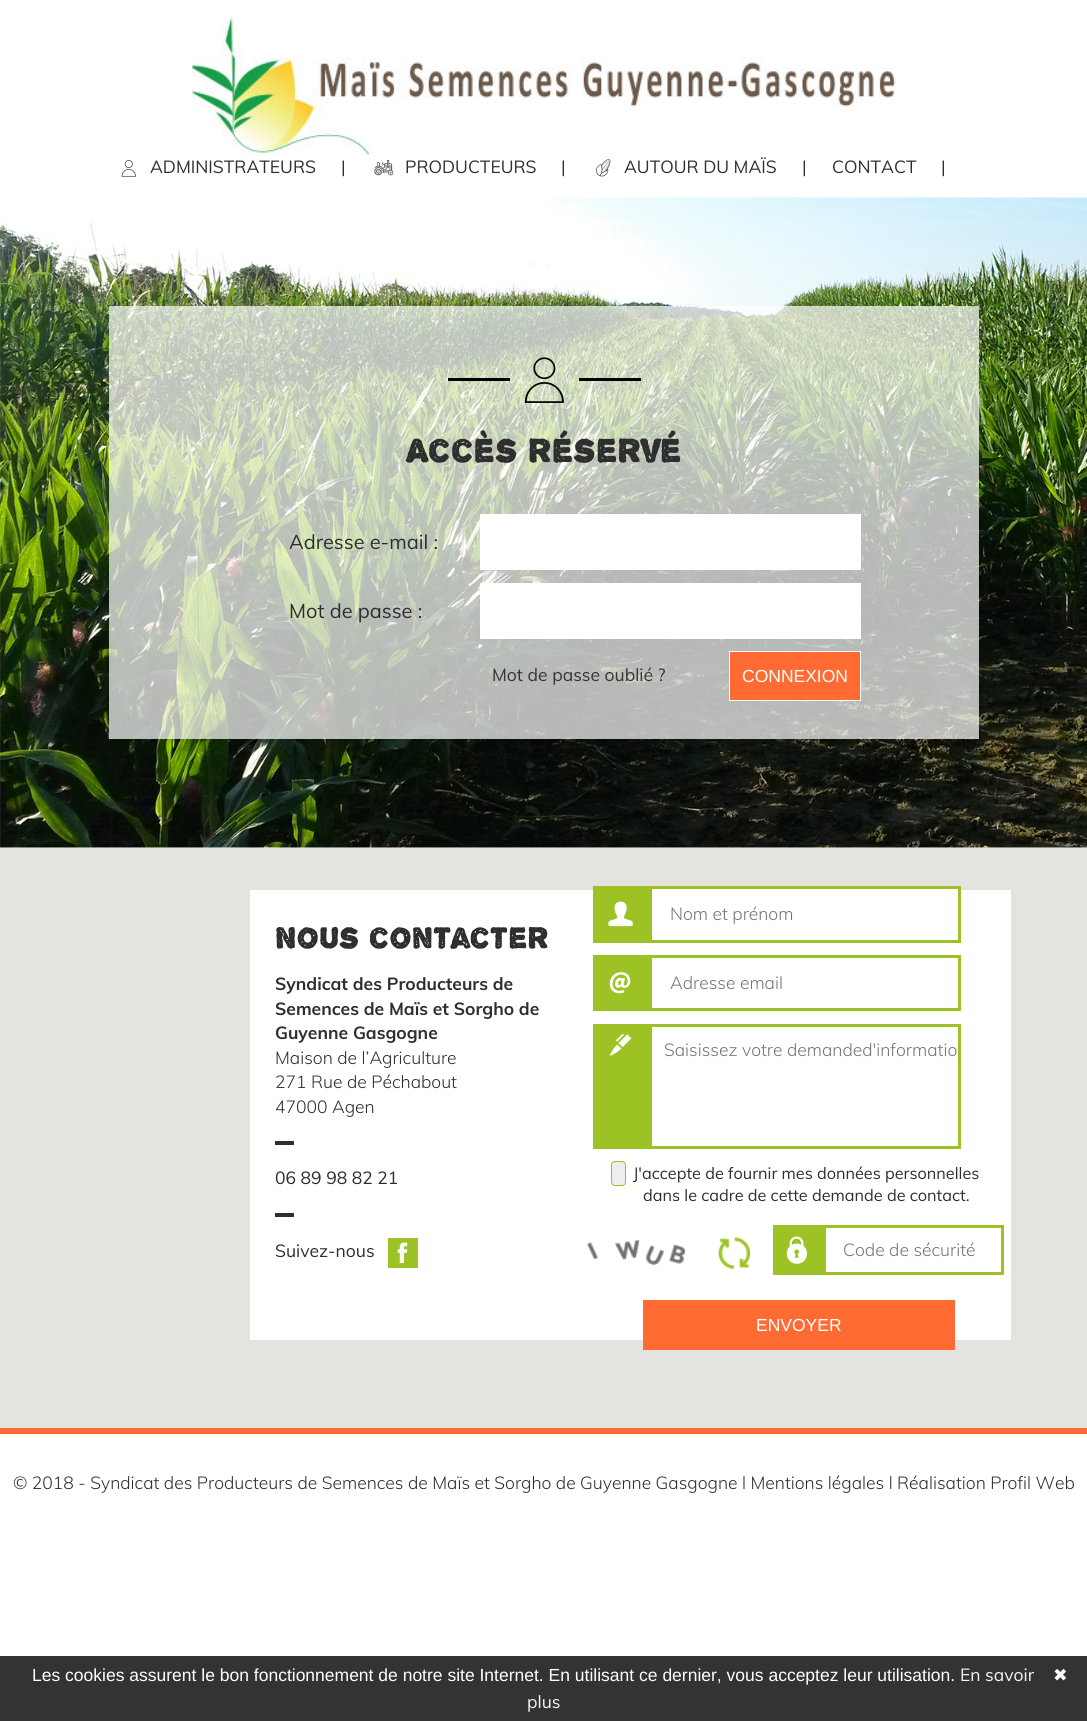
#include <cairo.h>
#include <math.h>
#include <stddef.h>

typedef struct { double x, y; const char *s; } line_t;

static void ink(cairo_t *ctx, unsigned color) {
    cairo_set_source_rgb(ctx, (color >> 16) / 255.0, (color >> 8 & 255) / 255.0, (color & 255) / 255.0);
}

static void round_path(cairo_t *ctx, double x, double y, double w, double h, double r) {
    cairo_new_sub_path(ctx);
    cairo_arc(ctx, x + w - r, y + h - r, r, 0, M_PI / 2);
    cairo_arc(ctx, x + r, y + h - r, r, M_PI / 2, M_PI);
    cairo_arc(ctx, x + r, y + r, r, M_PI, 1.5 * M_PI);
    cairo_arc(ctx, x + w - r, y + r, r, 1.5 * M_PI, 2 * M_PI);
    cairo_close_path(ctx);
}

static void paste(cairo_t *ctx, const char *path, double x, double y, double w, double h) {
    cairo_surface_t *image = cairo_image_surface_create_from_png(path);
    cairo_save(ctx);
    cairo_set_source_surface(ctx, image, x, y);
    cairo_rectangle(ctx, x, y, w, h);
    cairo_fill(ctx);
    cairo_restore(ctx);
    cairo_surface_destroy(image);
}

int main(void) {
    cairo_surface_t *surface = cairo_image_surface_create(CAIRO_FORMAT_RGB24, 1087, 1721);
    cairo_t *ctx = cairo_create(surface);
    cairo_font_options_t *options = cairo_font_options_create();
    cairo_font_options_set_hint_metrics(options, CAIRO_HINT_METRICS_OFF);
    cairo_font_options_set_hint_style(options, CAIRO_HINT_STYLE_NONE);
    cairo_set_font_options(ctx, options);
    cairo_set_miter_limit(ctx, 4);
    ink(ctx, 0xFFFFFF);
    cairo_paint(ctx);
    paste(ctx, "media/1.png", 192, 17, 704, 138);
    paste(ctx, "media/2.png", 121, 160, 15, 17);
    cairo_select_font_face(ctx, "Muli", CAIRO_FONT_SLANT_NORMAL, CAIRO_FONT_WEIGHT_NORMAL);
    cairo_set_font_size(ctx, 17.5);
    ink(ctx, 0x2E2E2E);
    cairo_move_to(ctx, 150, 173);
    cairo_show_text(ctx, "ADMINISTRATEURS");
    cairo_move_to(ctx, 341, 173);
    cairo_show_text(ctx, "|");
    paste(ctx, "media/3.png", 374, 159, 20, 17);
    cairo_move_to(ctx, 405, 173);
    cairo_show_text(ctx, "PRODUCTEURS");
    cairo_move_to(ctx, 561, 173);
    cairo_show_text(ctx, "|");
    paste(ctx, "media/4.png", 596, 159, 15, 18);
    {
        static const line_t items[] = {
            {624, 173, "AUTOUR DU MAÏS"},
            {802, 173, "|"},
            {832, 173, "CONTACT"},
            {941, 173, "|"},
        };
        for (size_t i = 0; i < sizeof items / sizeof *items; i++) {
            cairo_move_to(ctx, items[i].x, items[i].y);
            cairo_show_text(ctx, items[i].s);
        }
    }
    paste(ctx, "media/5.png", 0, 197, 1087, 651);
    cairo_set_source_rgba(ctx, 1, 1, 1, 0.71);
    cairo_rectangle(ctx, 109, 306, 870, 433);
    cairo_fill(ctx);
    ink(ctx, 0x000000);
    cairo_rectangle(ctx, 448, 378, 62, 3);
    cairo_fill(ctx);
    paste(ctx, "media/6.png", 524, 357, 40, 46);
    cairo_rectangle(ctx, 579, 378, 62, 3);
    cairo_fill(ctx);
    cairo_select_font_face(ctx, "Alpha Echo", CAIRO_FONT_SLANT_NORMAL, CAIRO_FONT_WEIGHT_NORMAL);
    cairo_set_font_size(ctx, 36.25);
    ink(ctx, 0x2E2E2E);
    cairo_move_to(ctx, 407, 463);
    cairo_show_text(ctx, "Accès réservé");
    cairo_select_font_face(ctx, "Muli", CAIRO_FONT_SLANT_NORMAL, CAIRO_FONT_WEIGHT_NORMAL);
    cairo_set_font_size(ctx, 20);
    cairo_move_to(ctx, 289, 549);
    cairo_show_text(ctx, "Adresse e-mail :");
    ink(ctx, 0xFFFFFF);
    cairo_rectangle(ctx, 480, 514, 381, 56);
    cairo_fill(ctx);
    ink(ctx, 0x2E2E2E);
    cairo_move_to(ctx, 289, 618);
    cairo_show_text(ctx, "Mot de passe :");
    ink(ctx, 0xFFFFFF);
    cairo_rectangle(ctx, 480, 583, 381, 56);
    cairo_fill(ctx);
    cairo_set_font_size(ctx, 17.5);
    ink(ctx, 0x353534);
    cairo_move_to(ctx, 492, 681);
    cairo_show_text(ctx, "Mot de passe oublié ?");
    ink(ctx, 0xFF6B33);
    cairo_rectangle(ctx, 729.5, 651.5, 131, 49);
    cairo_fill_preserve(ctx);
    ink(ctx, 0xFFFFFF);
    cairo_set_line_width(ctx, 1);
    cairo_stroke(ctx);
    cairo_select_font_face(ctx, "Liberation Sans", CAIRO_FONT_SLANT_NORMAL, CAIRO_FONT_WEIGHT_NORMAL);
    cairo_move_to(ctx, 742, 682);
    cairo_show_text(ctx, "CONNEXION");
    ink(ctx, 0xE5E3DF);
    cairo_rectangle(ctx, 0, 848, 1087, 580);
    cairo_fill(ctx);
    ink(ctx, 0xFFFFFF);
    cairo_rectangle(ctx, 250, 890, 761, 450);
    cairo_fill(ctx);
    cairo_select_font_face(ctx, "Alpha Echo", CAIRO_FONT_SLANT_NORMAL, CAIRO_FONT_WEIGHT_NORMAL);
    cairo_set_font_size(ctx, 32.5);
    ink(ctx, 0x2E2E2E);
    cairo_move_to(ctx, 275, 949);
    cairo_show_text(ctx, "Nous contacter");
    cairo_select_font_face(ctx, "Muli", CAIRO_FONT_SLANT_NORMAL, CAIRO_FONT_WEIGHT_BOLD);
    cairo_set_font_size(ctx, 17.5);
    {
        static const line_t items[] = {
            {275, 990, "Syndicat des Producteurs de"},
            {275, 1015, "Semences de Maïs et Sorgho de"},
            {275, 1039, "Guyenne Gasgogne"},
        };
        for (size_t i = 0; i < sizeof items / sizeof *items; i++) {
            cairo_move_to(ctx, items[i].x, items[i].y);
            cairo_show_text(ctx, items[i].s);
        }
    }
    cairo_select_font_face(ctx, "Muli Light", CAIRO_FONT_SLANT_NORMAL, CAIRO_FONT_WEIGHT_NORMAL);
    {
        static const line_t items[] = {
            {275, 1064, "Maison de l’Agriculture"},
            {275, 1088, "271 Rue de Péchabout"},
            {275, 1113, "47000 Agen"},
        };
        for (size_t i = 0; i < sizeof items / sizeof *items; i++) {
            cairo_move_to(ctx, items[i].x, items[i].y);
            cairo_show_text(ctx, items[i].s);
        }
    }
    cairo_rectangle(ctx, 275, 1141, 19, 4);
    cairo_fill(ctx);
    cairo_select_font_face(ctx, "Muli", CAIRO_FONT_SLANT_NORMAL, CAIRO_FONT_WEIGHT_NORMAL);
    cairo_move_to(ctx, 275, 1184);
    cairo_show_text(ctx, "06 89 98 82 21");
    cairo_rectangle(ctx, 275, 1213, 19, 4);
    cairo_fill(ctx);
    cairo_move_to(ctx, 275, 1257);
    cairo_show_text(ctx, "Suivez-nous");
    ink(ctx, 0x9CC323);
    cairo_rectangle(ctx, 388, 1238, 30, 30);
    cairo_fill(ctx);
    paste(ctx, "media/7.png", 397, 1242, 11, 22);
    cairo_rectangle(ctx, 593, 886, 56, 57);
    cairo_fill(ctx);
    paste(ctx, "media/8.png", 608, 901, 25, 26);
    ink(ctx, 0xFFFFFF);
    cairo_rectangle(ctx, 652, 889, 306, 1);
    cairo_fill(ctx);
    cairo_rectangle(ctx, 650.5, 887.5, 309, 54);
    ink(ctx, 0x9CC323);
    cairo_set_line_width(ctx, 3);
    cairo_stroke(ctx);
    cairo_select_font_face(ctx, "Muli Light", CAIRO_FONT_SLANT_NORMAL, CAIRO_FONT_WEIGHT_NORMAL);
    ink(ctx, 0x757575);
    cairo_move_to(ctx, 670, 920);
    cairo_show_text(ctx, "Nom et prénom");
    ink(ctx, 0x9CC323);
    cairo_rectangle(ctx, 593, 955, 56, 56);
    cairo_fill(ctx);
    paste(ctx, "media/9.png", 609, 972, 22, 22);
    cairo_rectangle(ctx, 650.5, 956.5, 309, 53);
    cairo_stroke(ctx);
    ink(ctx, 0x757575);
    cairo_move_to(ctx, 670, 989);
    cairo_show_text(ctx, "Adresse email");
    ink(ctx, 0x9CC323);
    cairo_rectangle(ctx, 593, 1024, 56, 125);
    cairo_fill(ctx);
    paste(ctx, "media/10.png", 609, 1034, 23, 22);
    cairo_rectangle(ctx, 650.5, 1025.5, 309, 122);
    cairo_stroke(ctx);
    ink(ctx, 0x757575);
    cairo_move_to(ctx, 664, 1056);
    cairo_show_text(ctx, "Saisissez votre demanded'informatio");
    ink(ctx, 0xEEEEEE);
    round_path(ctx, 611.5, 1161.5, 14, 24, 3.5);
    cairo_fill_preserve(ctx);
    ink(ctx, 0x9CC323);
    cairo_set_line_width(ctx, 1);
    cairo_stroke(ctx);
    cairo_select_font_face(ctx, "Muli", CAIRO_FONT_SLANT_NORMAL, CAIRO_FONT_WEIGHT_NORMAL);
    cairo_set_font_size(ctx, 16.25);
    ink(ctx, 0x2E2E2E);
    cairo_move_to(ctx, 633, 1179);
    cairo_show_text(ctx, "J'accepte de fournir mes données personnelles");
    cairo_move_to(ctx, 643, 1201);
    cairo_show_text(ctx, "dans le cadre de cette demande de contact.");
    paste(ctx, "media/11.png", 587, 1239, 99, 27);
    paste(ctx, "media/12.png", 718, 1237, 32, 32);
    ink(ctx, 0x9CC323);
    cairo_rectangle(ctx, 773, 1225, 50, 50);
    cairo_fill(ctx);
    paste(ctx, "media/13.png", 786, 1236, 22, 28);
    cairo_rectangle(ctx, 824.5, 1226.5, 178, 47);
    cairo_set_line_width(ctx, 3);
    cairo_stroke(ctx);
    cairo_select_font_face(ctx, "Muli Light", CAIRO_FONT_SLANT_NORMAL, CAIRO_FONT_WEIGHT_NORMAL);
    cairo_set_font_size(ctx, 17.5);
    ink(ctx, 0x757575);
    cairo_move_to(ctx, 843, 1256);
    cairo_show_text(ctx, "Code de sécurité");
    ink(ctx, 0xFF6B33);
    cairo_rectangle(ctx, 643, 1300, 312, 50);
    cairo_fill(ctx);
    cairo_select_font_face(ctx, "Liberation Sans", CAIRO_FONT_SLANT_NORMAL, CAIRO_FONT_WEIGHT_NORMAL);
    ink(ctx, 0xFFFFFF);
    cairo_move_to(ctx, 756, 1331);
    cairo_show_text(ctx, "ENVOYER");
    ink(ctx, 0xFF6B33);
    cairo_rectangle(ctx, 0, 1428, 1087, 6);
    cairo_fill(ctx);
    cairo_select_font_face(ctx, "Muli Light", CAIRO_FONT_SLANT_NORMAL, CAIRO_FONT_WEIGHT_NORMAL);
    ink(ctx, 0x2E2E2E);
    cairo_move_to(ctx, 13, 1489);
    cairo_show_text(ctx, "© 2018 - Syndicat des Producteurs de Semences de Maïs et Sorgho de Guyenne Gasgogne l Mentions légales l Réalisation Profil Web");
    ink(ctx, 0x333333);
    cairo_rectangle(ctx, 0, 1656, 1087, 65);
    cairo_fill(ctx);
    cairo_select_font_face(ctx, "Liberation Sans", CAIRO_FONT_SLANT_NORMAL, CAIRO_FONT_WEIGHT_NORMAL);
    ink(ctx, 0xFFFFFF);
    cairo_move_to(ctx, 32, 1681);
    cairo_show_text(ctx, "Les cookies assurent le bon fonctionnement de notre site Internet. En utilisant ce dernier, vous acceptez leur utilisation.");
    cairo_select_font_face(ctx, "Muli", CAIRO_FONT_SLANT_NORMAL, CAIRO_FONT_WEIGHT_NORMAL);
    ink(ctx, 0xF5F5F5);
    cairo_move_to(ctx, 960, 1681);
    cairo_show_text(ctx, "En savoir");
    cairo_select_font_face(ctx, "DejaVu Sans", CAIRO_FONT_SLANT_NORMAL, CAIRO_FONT_WEIGHT_NORMAL);
    ink(ctx, 0xFFFFFF);
    cairo_move_to(ctx, 1053, 1681);
    cairo_show_text(ctx, "✖");
    cairo_select_font_face(ctx, "Muli", CAIRO_FONT_SLANT_NORMAL, CAIRO_FONT_WEIGHT_NORMAL);
    ink(ctx, 0xF5F5F5);
    cairo_move_to(ctx, 527, 1708);
    cairo_show_text(ctx, "plus");
    cairo_surface_write_to_png(surface, "image.png");
    cairo_font_options_destroy(options);
    cairo_destroy(ctx);
    cairo_surface_destroy(surface);
    return 0;
}
